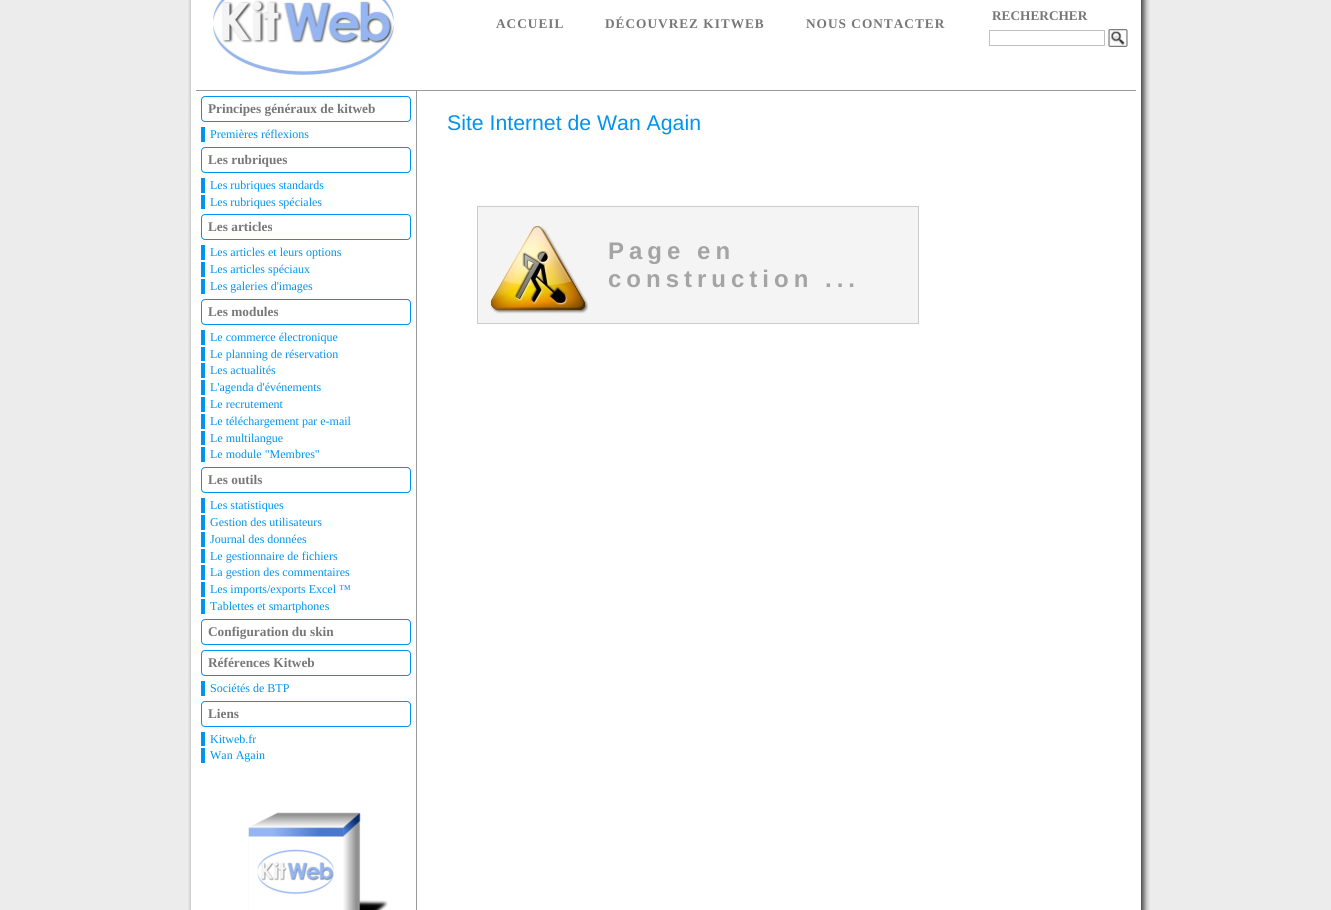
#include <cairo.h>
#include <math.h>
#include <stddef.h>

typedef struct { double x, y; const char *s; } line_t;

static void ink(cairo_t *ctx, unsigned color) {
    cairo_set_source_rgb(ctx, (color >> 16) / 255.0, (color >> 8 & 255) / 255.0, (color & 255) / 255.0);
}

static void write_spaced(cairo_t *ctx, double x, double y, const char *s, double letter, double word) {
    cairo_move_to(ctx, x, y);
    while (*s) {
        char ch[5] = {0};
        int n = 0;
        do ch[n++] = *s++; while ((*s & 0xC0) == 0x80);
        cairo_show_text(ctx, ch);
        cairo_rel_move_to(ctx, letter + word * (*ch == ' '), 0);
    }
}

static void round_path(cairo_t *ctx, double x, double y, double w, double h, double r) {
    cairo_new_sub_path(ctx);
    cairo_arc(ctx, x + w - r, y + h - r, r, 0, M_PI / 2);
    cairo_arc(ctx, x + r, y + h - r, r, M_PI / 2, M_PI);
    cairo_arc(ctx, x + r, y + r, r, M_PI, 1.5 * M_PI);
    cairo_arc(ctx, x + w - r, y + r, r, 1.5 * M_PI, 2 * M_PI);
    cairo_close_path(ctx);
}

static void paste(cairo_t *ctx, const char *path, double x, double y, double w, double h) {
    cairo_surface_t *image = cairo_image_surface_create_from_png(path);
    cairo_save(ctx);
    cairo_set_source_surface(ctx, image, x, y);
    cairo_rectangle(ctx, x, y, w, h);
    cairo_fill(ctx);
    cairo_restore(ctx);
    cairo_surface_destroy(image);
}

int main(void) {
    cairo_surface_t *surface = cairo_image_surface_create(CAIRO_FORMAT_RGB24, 1331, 910);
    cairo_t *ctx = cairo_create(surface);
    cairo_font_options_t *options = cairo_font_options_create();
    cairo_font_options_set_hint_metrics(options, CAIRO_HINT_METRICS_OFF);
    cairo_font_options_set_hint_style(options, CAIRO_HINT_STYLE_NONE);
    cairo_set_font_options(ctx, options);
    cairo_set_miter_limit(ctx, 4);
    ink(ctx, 0xECECEC);
    cairo_paint(ctx);
    paste(ctx, "media/1.png", 188, 0, 962, 910);
    paste(ctx, "media/2.png", 212, 0, 182, 76);
    cairo_select_font_face(ctx, "Liberation Serif", CAIRO_FONT_SLANT_NORMAL, CAIRO_FONT_WEIGHT_BOLD);
    cairo_set_font_size(ctx, 13.3);
    ink(ctx, 0x777777);
    {
        static const line_t items[] = {
            {496, 28, "ACCUEIL"},
            {605, 28, "DÉCOUVREZ KITWEB"},
            {806, 28, "NOUS CONTACTER"},
        };
        for (size_t i = 0; i < sizeof items / sizeof *items; i++) {
            write_spaced(ctx, items[i].x, items[i].y, items[i].s, 1, 0);
        }
    }
    cairo_move_to(ctx, 992, 20);
    cairo_show_text(ctx, "RECHERCHER");
    cairo_rectangle(ctx, 989.5, 30.5, 115, 15);
    ink(ctx, 0xC0C0C0);
    cairo_set_line_width(ctx, 1);
    cairo_stroke(ctx);
    paste(ctx, "media/3.png", 1108, 29, 20, 18);
    ink(ctx, 0x999999);
    cairo_rectangle(ctx, 196, 90, 940, 1);
    cairo_fill(ctx);
    cairo_rectangle(ctx, 416, 90, 1, 820);
    cairo_fill(ctx);
    round_path(ctx, 201.5, 96.5, 209, 25, 3.5);
    ink(ctx, 0x0093EF);
    cairo_stroke(ctx);
    ink(ctx, 0x777777);
    cairo_move_to(ctx, 208, 113);
    cairo_show_text(ctx, "Principes généraux de kitweb");
    ink(ctx, 0x0093EF);
    cairo_rectangle(ctx, 201, 127, 4, 15);
    cairo_fill(ctx);
    cairo_select_font_face(ctx, "Liberation Serif", CAIRO_FONT_SLANT_NORMAL, CAIRO_FONT_WEIGHT_NORMAL);
    cairo_set_font_size(ctx, 12);
    cairo_move_to(ctx, 210, 138);
    cairo_show_text(ctx, "Premières réflexions");
    round_path(ctx, 201.5, 147.5, 209, 25, 3.5);
    cairo_stroke(ctx);
    cairo_select_font_face(ctx, "Liberation Serif", CAIRO_FONT_SLANT_NORMAL, CAIRO_FONT_WEIGHT_BOLD);
    cairo_set_font_size(ctx, 13.3);
    ink(ctx, 0x777777);
    cairo_move_to(ctx, 208, 164);
    cairo_show_text(ctx, "Les rubriques");
    ink(ctx, 0x0093EF);
    cairo_rectangle(ctx, 201, 178, 4, 15);
    cairo_fill(ctx);
    cairo_select_font_face(ctx, "Liberation Serif", CAIRO_FONT_SLANT_NORMAL, CAIRO_FONT_WEIGHT_NORMAL);
    cairo_set_font_size(ctx, 12);
    cairo_move_to(ctx, 210, 189);
    cairo_show_text(ctx, "Les rubriques standards");
    cairo_rectangle(ctx, 201, 195, 4, 14);
    cairo_fill(ctx);
    cairo_move_to(ctx, 210, 206);
    cairo_show_text(ctx, "Les rubriques spéciales");
    round_path(ctx, 201.5, 214.5, 209, 25, 3.5);
    cairo_stroke(ctx);
    cairo_select_font_face(ctx, "Liberation Serif", CAIRO_FONT_SLANT_NORMAL, CAIRO_FONT_WEIGHT_BOLD);
    cairo_set_font_size(ctx, 13.3);
    ink(ctx, 0x777777);
    cairo_move_to(ctx, 208, 231);
    cairo_show_text(ctx, "Les articles");
    ink(ctx, 0x0093EF);
    cairo_rectangle(ctx, 201, 245, 4, 15);
    cairo_fill(ctx);
    cairo_select_font_face(ctx, "Liberation Serif", CAIRO_FONT_SLANT_NORMAL, CAIRO_FONT_WEIGHT_NORMAL);
    cairo_set_font_size(ctx, 12);
    cairo_move_to(ctx, 210, 256);
    cairo_show_text(ctx, "Les articles et leurs options");
    cairo_rectangle(ctx, 201, 262, 4, 15);
    cairo_fill(ctx);
    cairo_move_to(ctx, 210, 273);
    cairo_show_text(ctx, "Les articles spéciaux");
    cairo_rectangle(ctx, 201, 279, 4, 15);
    cairo_fill(ctx);
    cairo_move_to(ctx, 210, 290);
    cairo_show_text(ctx, "Les galeries d'images");
    round_path(ctx, 201.5, 299.5, 209, 25, 3.5);
    cairo_stroke(ctx);
    cairo_select_font_face(ctx, "Liberation Serif", CAIRO_FONT_SLANT_NORMAL, CAIRO_FONT_WEIGHT_BOLD);
    cairo_set_font_size(ctx, 13.3);
    ink(ctx, 0x777777);
    cairo_move_to(ctx, 208, 316);
    cairo_show_text(ctx, "Les modules");
    ink(ctx, 0x0093EF);
    cairo_rectangle(ctx, 201, 330, 4, 15);
    cairo_fill(ctx);
    cairo_select_font_face(ctx, "Liberation Serif", CAIRO_FONT_SLANT_NORMAL, CAIRO_FONT_WEIGHT_NORMAL);
    cairo_set_font_size(ctx, 12);
    cairo_move_to(ctx, 210, 341);
    cairo_show_text(ctx, "Le commerce électronique");
    cairo_rectangle(ctx, 201, 347, 4, 14);
    cairo_fill(ctx);
    cairo_move_to(ctx, 210, 358);
    cairo_show_text(ctx, "Le planning de réservation");
    cairo_rectangle(ctx, 201, 363, 4, 15);
    cairo_fill(ctx);
    cairo_move_to(ctx, 210, 374);
    cairo_show_text(ctx, "Les actualités");
    cairo_rectangle(ctx, 201, 380, 4, 15);
    cairo_fill(ctx);
    cairo_move_to(ctx, 210, 391);
    cairo_show_text(ctx, "L'agenda d'événements");
    cairo_rectangle(ctx, 201, 397, 4, 15);
    cairo_fill(ctx);
    cairo_move_to(ctx, 210, 408);
    cairo_show_text(ctx, "Le recrutement");
    cairo_rectangle(ctx, 201, 414, 4, 15);
    cairo_fill(ctx);
    cairo_move_to(ctx, 210, 425);
    cairo_show_text(ctx, "Le téléchargement par e-mail");
    cairo_rectangle(ctx, 201, 431, 4, 14);
    cairo_fill(ctx);
    cairo_move_to(ctx, 210, 442);
    cairo_show_text(ctx, "Le multilangue");
    cairo_rectangle(ctx, 201, 447, 4, 15);
    cairo_fill(ctx);
    cairo_move_to(ctx, 210, 458);
    cairo_show_text(ctx, "Le module \"Membres\"");
    round_path(ctx, 201.5, 467.5, 209, 25, 3.5);
    cairo_stroke(ctx);
    cairo_select_font_face(ctx, "Liberation Serif", CAIRO_FONT_SLANT_NORMAL, CAIRO_FONT_WEIGHT_BOLD);
    cairo_set_font_size(ctx, 13.3);
    ink(ctx, 0x777777);
    cairo_move_to(ctx, 208, 484);
    cairo_show_text(ctx, "Les outils");
    ink(ctx, 0x0093EF);
    cairo_rectangle(ctx, 201, 498, 4, 15);
    cairo_fill(ctx);
    cairo_select_font_face(ctx, "Liberation Serif", CAIRO_FONT_SLANT_NORMAL, CAIRO_FONT_WEIGHT_NORMAL);
    cairo_set_font_size(ctx, 12);
    cairo_move_to(ctx, 210, 509);
    cairo_show_text(ctx, "Les statistiques");
    cairo_rectangle(ctx, 201, 515, 4, 15);
    cairo_fill(ctx);
    cairo_move_to(ctx, 210, 526);
    cairo_show_text(ctx, "Gestion des utilisateurs");
    cairo_rectangle(ctx, 201, 532, 4, 15);
    cairo_fill(ctx);
    cairo_move_to(ctx, 210, 543);
    cairo_show_text(ctx, "Journal des données");
    cairo_rectangle(ctx, 201, 549, 4, 14);
    cairo_fill(ctx);
    cairo_move_to(ctx, 210, 560);
    cairo_show_text(ctx, "Le gestionnaire de fichiers");
    cairo_rectangle(ctx, 201, 565, 4, 15);
    cairo_fill(ctx);
    cairo_move_to(ctx, 210, 576);
    cairo_show_text(ctx, "La gestion des commentaires");
    cairo_rectangle(ctx, 201, 582, 4, 15);
    cairo_fill(ctx);
    cairo_move_to(ctx, 210, 593);
    cairo_show_text(ctx, "Les imports/exports Excel ™");
    cairo_rectangle(ctx, 201, 599, 4, 15);
    cairo_fill(ctx);
    cairo_move_to(ctx, 210, 610);
    cairo_show_text(ctx, "Tablettes et smartphones");
    round_path(ctx, 201.5, 619.5, 209, 25, 3.5);
    cairo_stroke(ctx);
    cairo_select_font_face(ctx, "Liberation Serif", CAIRO_FONT_SLANT_NORMAL, CAIRO_FONT_WEIGHT_BOLD);
    cairo_set_font_size(ctx, 13.3);
    ink(ctx, 0x777777);
    cairo_move_to(ctx, 208, 636);
    cairo_show_text(ctx, "Configuration du skin");
    round_path(ctx, 201.5, 650.5, 209, 25, 3.5);
    ink(ctx, 0x0093EF);
    cairo_stroke(ctx);
    ink(ctx, 0x777777);
    cairo_move_to(ctx, 208, 667);
    cairo_show_text(ctx, "Références Kitweb");
    ink(ctx, 0x0093EF);
    cairo_rectangle(ctx, 201, 681, 4, 15);
    cairo_fill(ctx);
    cairo_select_font_face(ctx, "Liberation Serif", CAIRO_FONT_SLANT_NORMAL, CAIRO_FONT_WEIGHT_NORMAL);
    cairo_set_font_size(ctx, 12);
    cairo_move_to(ctx, 210, 692);
    cairo_show_text(ctx, "Sociétés de BTP");
    round_path(ctx, 201.5, 701.5, 209, 25, 3.5);
    cairo_stroke(ctx);
    cairo_select_font_face(ctx, "Liberation Serif", CAIRO_FONT_SLANT_NORMAL, CAIRO_FONT_WEIGHT_BOLD);
    cairo_set_font_size(ctx, 13.3);
    ink(ctx, 0x777777);
    cairo_move_to(ctx, 208, 718);
    cairo_show_text(ctx, "Liens");
    ink(ctx, 0x0093EF);
    cairo_rectangle(ctx, 201, 732, 4, 14);
    cairo_fill(ctx);
    cairo_select_font_face(ctx, "Liberation Serif", CAIRO_FONT_SLANT_NORMAL, CAIRO_FONT_WEIGHT_NORMAL);
    cairo_set_font_size(ctx, 12);
    cairo_move_to(ctx, 210, 743);
    cairo_show_text(ctx, "Kitweb.fr");
    cairo_rectangle(ctx, 201, 748, 4, 15);
    cairo_fill(ctx);
    cairo_move_to(ctx, 210, 759);
    cairo_show_text(ctx, "Wan Again");
    paste(ctx, "media/4.png", 248, 812, 140, 98);
    cairo_select_font_face(ctx, "Liberation Sans", CAIRO_FONT_SLANT_NORMAL, CAIRO_FONT_WEIGHT_NORMAL);
    cairo_set_font_size(ctx, 21.25);
    cairo_move_to(ctx, 447, 130);
    cairo_show_text(ctx, "Site Internet de Wan Again");
    ink(ctx, 0xF4F4F4);
    cairo_rectangle(ctx, 478, 207, 440, 116);
    cairo_fill(ctx);
    paste(ctx, "media/5.png", 489, 224, 99, 90);
    cairo_rectangle(ctx, 477.5, 206.5, 441, 117);
    ink(ctx, 0xCBCBCB);
    cairo_stroke(ctx);
    cairo_select_font_face(ctx, "Liberation Sans", CAIRO_FONT_SLANT_NORMAL, CAIRO_FONT_WEIGHT_BOLD);
    cairo_set_font_size(ctx, 24);
    ink(ctx, 0xA4A4A4);
    write_spaced(ctx, 608, 259, "Page en", 5, 0);
    write_spaced(ctx, 608, 287, "construction ...", 5, 0);
    cairo_surface_write_to_png(surface, "image.png");
    cairo_font_options_destroy(options);
    cairo_destroy(ctx);
    cairo_surface_destroy(surface);
    return 0;
}
